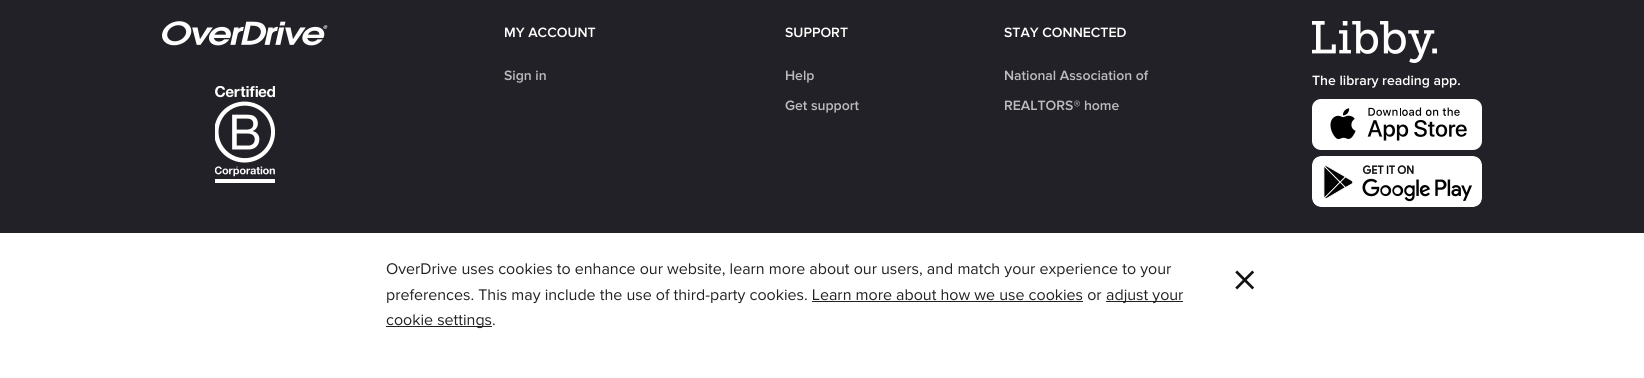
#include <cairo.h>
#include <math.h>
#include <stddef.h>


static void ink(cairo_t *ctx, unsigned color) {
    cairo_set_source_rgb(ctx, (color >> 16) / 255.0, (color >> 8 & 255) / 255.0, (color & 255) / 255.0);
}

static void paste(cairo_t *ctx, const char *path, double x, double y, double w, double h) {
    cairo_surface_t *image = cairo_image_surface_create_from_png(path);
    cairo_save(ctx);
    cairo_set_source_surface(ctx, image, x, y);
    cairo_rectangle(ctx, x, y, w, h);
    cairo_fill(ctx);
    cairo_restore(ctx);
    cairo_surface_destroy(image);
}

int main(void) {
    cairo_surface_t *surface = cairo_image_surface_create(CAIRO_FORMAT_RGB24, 1644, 378);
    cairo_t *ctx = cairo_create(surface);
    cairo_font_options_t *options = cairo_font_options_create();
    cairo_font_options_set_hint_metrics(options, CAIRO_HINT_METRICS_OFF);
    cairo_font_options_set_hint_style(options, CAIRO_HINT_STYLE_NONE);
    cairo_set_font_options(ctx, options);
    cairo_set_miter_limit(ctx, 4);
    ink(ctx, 0x212127);
    cairo_paint(ctx);
    paste(ctx, "media/1.png", 162, 21, 166, 25);
    paste(ctx, "media/2.png", 215, 86, 60, 97);
    cairo_select_font_face(ctx, "Proxima Nova SemiBold", CAIRO_FONT_SLANT_NORMAL, CAIRO_FONT_WEIGHT_NORMAL);
    cairo_set_font_size(ctx, 14);
    ink(ctx, 0xFFFFFF);
    cairo_move_to(ctx, 504, 37);
    cairo_show_text(ctx, "MY ACCOUNT");
    ink(ctx, 0xBCBCBE);
    cairo_move_to(ctx, 504, 80);
    cairo_show_text(ctx, "Sign in");
    ink(ctx, 0xFFFFFF);
    cairo_move_to(ctx, 785, 37);
    cairo_show_text(ctx, "SUPPORT");
    ink(ctx, 0xBCBCBE);
    cairo_move_to(ctx, 785, 80);
    cairo_show_text(ctx, "Help");
    cairo_move_to(ctx, 785, 110);
    cairo_show_text(ctx, "Get support");
    ink(ctx, 0xFFFFFF);
    cairo_move_to(ctx, 1004, 37);
    cairo_show_text(ctx, "STAY CONNECTED");
    ink(ctx, 0xBCBCBE);
    cairo_move_to(ctx, 1004, 80);
    cairo_show_text(ctx, "National Association of");
    cairo_move_to(ctx, 1004, 110);
    cairo_show_text(ctx, "REALTORS® home");
    paste(ctx, "media/3.png", 1312, 21, 125, 42);
    ink(ctx, 0xFFFFFF);
    cairo_move_to(ctx, 1312, 85);
    cairo_show_text(ctx, "The library reading app.");
    paste(ctx, "media/4.png", 1312, 99, 170, 51);
    paste(ctx, "media/5.png", 1312, 156, 170, 51);
    cairo_rectangle(ctx, 0, 233, 1644, 145);
    cairo_fill(ctx);
    cairo_select_font_face(ctx, "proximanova", CAIRO_FONT_SLANT_NORMAL, CAIRO_FONT_WEIGHT_NORMAL);
    cairo_set_font_size(ctx, 16);
    ink(ctx, 0x222222);
    cairo_move_to(ctx, 386, 274);
    cairo_show_text(ctx, "OverDrive uses cookies to enhance our website, learn more about our users, and match your experience to your");
    cairo_move_to(ctx, 386, 300);
    cairo_show_text(ctx, "preferences. This may include the use of third-party cookies. Learn more about how we use cookies or");
    cairo_rectangle(ctx, 812, 301, 271, 1);
    cairo_fill(ctx);
    cairo_rectangle(ctx, 1106, 301, 77, 1);
    cairo_fill(ctx);
    cairo_move_to(ctx, 1106, 300);
    cairo_show_text(ctx, "adjust your");
    cairo_rectangle(ctx, 386, 326, 106, 1);
    cairo_fill(ctx);
    cairo_move_to(ctx, 386, 325);
    cairo_show_text(ctx, "cookie settings.");
    cairo_set_font_size(ctx, 51);
    ink(ctx, 0x111111);
    cairo_move_to(ctx, 1232, 297);
    cairo_show_text(ctx, "×");
    cairo_surface_write_to_png(surface, "image.png");
    cairo_font_options_destroy(options);
    cairo_destroy(ctx);
    cairo_surface_destroy(surface);
    return 0;
}
